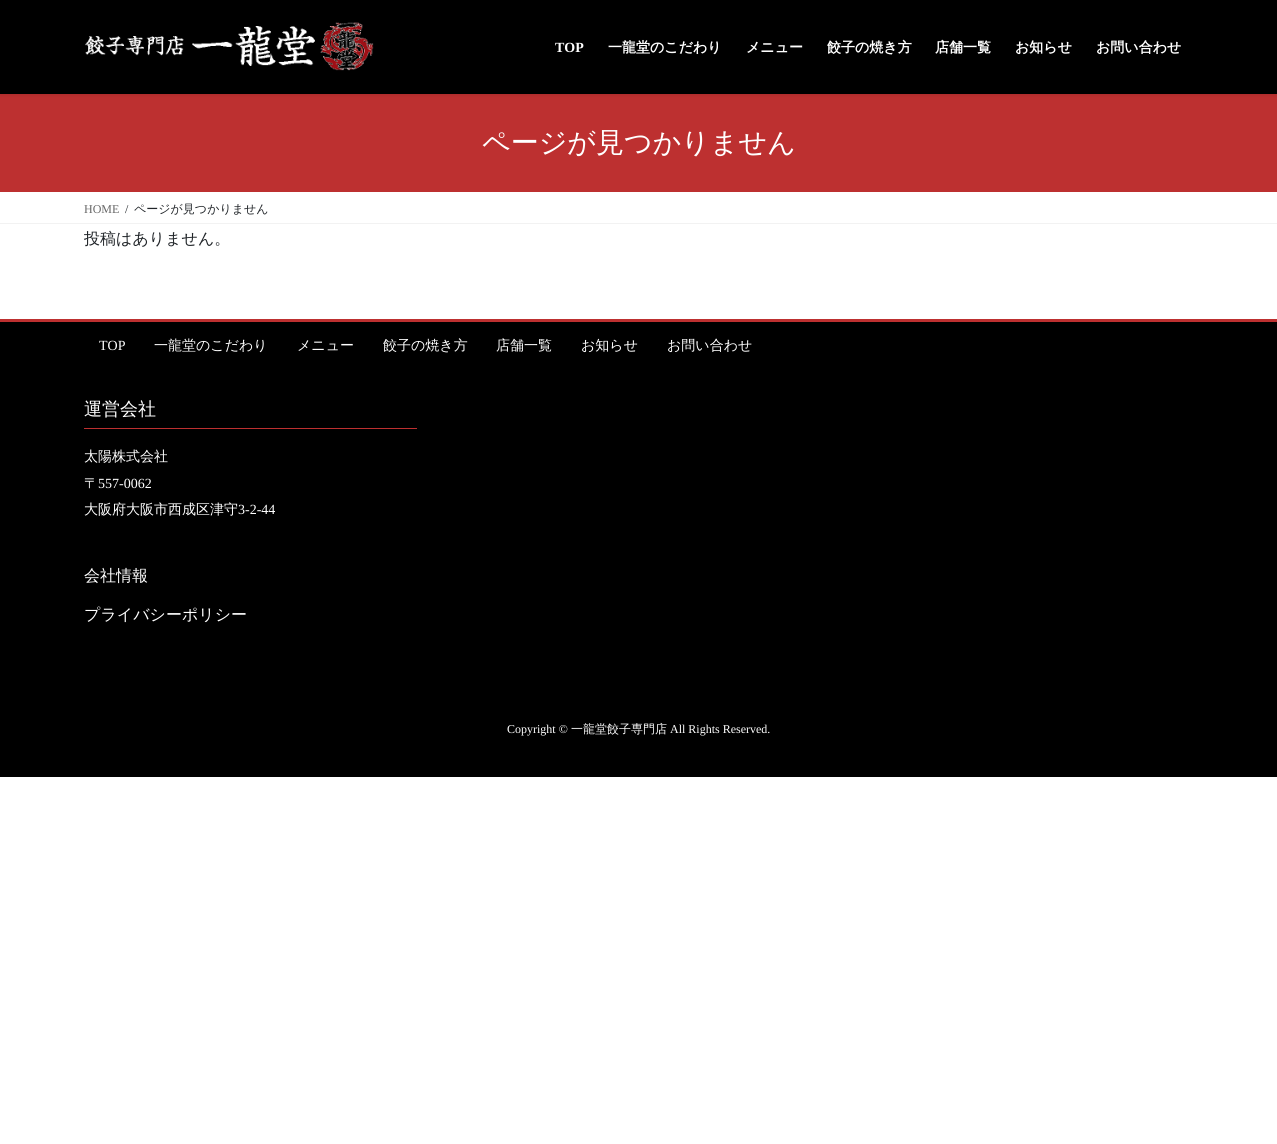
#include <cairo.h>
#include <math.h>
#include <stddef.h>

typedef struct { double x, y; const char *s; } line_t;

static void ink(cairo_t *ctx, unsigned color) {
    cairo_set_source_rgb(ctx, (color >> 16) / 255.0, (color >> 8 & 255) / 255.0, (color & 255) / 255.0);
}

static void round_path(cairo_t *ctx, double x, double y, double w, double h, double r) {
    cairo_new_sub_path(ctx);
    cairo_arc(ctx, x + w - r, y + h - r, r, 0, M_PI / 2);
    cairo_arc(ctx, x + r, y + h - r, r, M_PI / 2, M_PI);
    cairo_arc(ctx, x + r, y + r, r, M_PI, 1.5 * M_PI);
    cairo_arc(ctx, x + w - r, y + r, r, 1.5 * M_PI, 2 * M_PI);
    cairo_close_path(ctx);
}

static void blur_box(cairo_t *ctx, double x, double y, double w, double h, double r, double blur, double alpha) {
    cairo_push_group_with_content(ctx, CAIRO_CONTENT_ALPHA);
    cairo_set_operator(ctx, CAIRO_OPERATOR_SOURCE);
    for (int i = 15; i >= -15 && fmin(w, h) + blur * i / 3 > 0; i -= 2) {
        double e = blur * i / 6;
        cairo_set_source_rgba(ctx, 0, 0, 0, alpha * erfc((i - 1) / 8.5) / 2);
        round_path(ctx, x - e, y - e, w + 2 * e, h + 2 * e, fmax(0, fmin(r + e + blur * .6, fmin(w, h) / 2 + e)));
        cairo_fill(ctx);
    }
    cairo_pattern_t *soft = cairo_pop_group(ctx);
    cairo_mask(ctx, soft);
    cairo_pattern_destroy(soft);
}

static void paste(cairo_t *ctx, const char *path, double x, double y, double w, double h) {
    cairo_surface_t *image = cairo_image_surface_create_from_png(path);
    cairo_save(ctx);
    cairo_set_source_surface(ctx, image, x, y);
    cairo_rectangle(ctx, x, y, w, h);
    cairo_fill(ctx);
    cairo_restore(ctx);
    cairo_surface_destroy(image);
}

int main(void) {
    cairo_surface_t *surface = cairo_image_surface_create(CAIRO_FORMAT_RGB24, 1277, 1144);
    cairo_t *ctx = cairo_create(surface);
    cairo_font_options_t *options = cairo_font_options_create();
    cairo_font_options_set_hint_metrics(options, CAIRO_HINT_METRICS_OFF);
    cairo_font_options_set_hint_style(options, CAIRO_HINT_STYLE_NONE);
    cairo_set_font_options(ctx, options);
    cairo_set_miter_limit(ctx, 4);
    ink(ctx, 0xFFFFFF);
    cairo_paint(ctx);
    ink(ctx, 0xBD3030);
    cairo_rectangle(ctx, 0, 94, 1277, 98);
    cairo_fill(ctx);
    ink(ctx, 0x000000);
    blur_box(ctx, 0, 1, 1277, 94, 0, 1.5, 0.1);
    ink(ctx, 0x000000);
    cairo_rectangle(ctx, 0, 0, 1277, 94);
    cairo_fill(ctx);
    paste(ctx, "media/1.png", 85, 22, 289, 49);
    cairo_select_font_face(ctx, "Liberation Serif", CAIRO_FONT_SLANT_NORMAL, CAIRO_FONT_WEIGHT_BOLD);
    cairo_set_font_size(ctx, 14);
    ink(ctx, 0xFFFFFF);
    cairo_move_to(ctx, 555, 52);
    cairo_show_text(ctx, "TOP");
    cairo_select_font_face(ctx, "WenQuanYi Zen Hei", CAIRO_FONT_SLANT_NORMAL, CAIRO_FONT_WEIGHT_BOLD);
    {
        static const line_t items[] = {
            {608, 52, "一龍堂のこだわり"},
            {746, 52, "メニュー"},
            {827, 52, "餃子の焼き方"},
            {935, 52, "店舗一覧"},
            {1015, 52, "お知らせ"},
            {1096, 52, "お問い合わせ"},
        };
        for (size_t i = 0; i < sizeof items / sizeof *items; i++) {
            cairo_move_to(ctx, items[i].x, items[i].y);
            cairo_show_text(ctx, items[i].s);
        }
    }
    cairo_select_font_face(ctx, "WenQuanYi Zen Hei Medium", CAIRO_FONT_SLANT_NORMAL, CAIRO_FONT_WEIGHT_NORMAL);
    cairo_set_font_size(ctx, 28);
    cairo_move_to(ctx, 482, 152);
    cairo_show_text(ctx, "ページが見つかりません");
    ink(ctx, 0xF2F2F2);
    cairo_rectangle(ctx, 0, 223, 1277, 1);
    cairo_fill(ctx);
    cairo_select_font_face(ctx, "Liberation Serif", CAIRO_FONT_SLANT_NORMAL, CAIRO_FONT_WEIGHT_NORMAL);
    cairo_set_font_size(ctx, 12);
    ink(ctx, 0x666666);
    cairo_move_to(ctx, 84, 213);
    cairo_show_text(ctx, "HOME");
    ink(ctx, 0x212529);
    cairo_move_to(ctx, 125, 213);
    cairo_show_text(ctx, "/");
    cairo_select_font_face(ctx, "WenQuanYi Zen Hei Medium", CAIRO_FONT_SLANT_NORMAL, CAIRO_FONT_WEIGHT_NORMAL);
    cairo_move_to(ctx, 134, 213);
    cairo_show_text(ctx, "ページが見つかりません");
    cairo_set_font_size(ctx, 16);
    cairo_move_to(ctx, 84, 244);
    cairo_show_text(ctx, "投稿はありません。");
    ink(ctx, 0x000000);
    cairo_rectangle(ctx, 0, 322, 1277, 455);
    cairo_fill(ctx);
    ink(ctx, 0xBD3030);
    cairo_rectangle(ctx, 0, 319, 1277, 3);
    cairo_fill(ctx);
    cairo_select_font_face(ctx, "Liberation Serif", CAIRO_FONT_SLANT_NORMAL, CAIRO_FONT_WEIGHT_NORMAL);
    cairo_set_font_size(ctx, 14);
    ink(ctx, 0xFFFFFF);
    cairo_move_to(ctx, 99, 350);
    cairo_show_text(ctx, "TOP");
    cairo_select_font_face(ctx, "WenQuanYi Zen Hei Medium", CAIRO_FONT_SLANT_NORMAL, CAIRO_FONT_WEIGHT_NORMAL);
    {
        static const line_t items[] = {
            {154, 350, "一龍堂のこだわり"},
            {297, 350, "メニュー"},
            {383, 350, "餃子の焼き方"},
            {496, 350, "店舗一覧"},
            {581, 350, "お知らせ"},
            {667, 350, "お問い合わせ"},
        };
        for (size_t i = 0; i < sizeof items / sizeof *items; i++) {
            cairo_move_to(ctx, items[i].x, items[i].y);
            cairo_show_text(ctx, items[i].s);
        }
    }
    cairo_set_font_size(ctx, 18);
    cairo_move_to(ctx, 84, 415);
    cairo_show_text(ctx, "運営会社");
    ink(ctx, 0xBD3030);
    cairo_rectangle(ctx, 84, 428, 333, 1);
    cairo_fill(ctx);
    cairo_set_font_size(ctx, 14);
    ink(ctx, 0xFFFFFF);
    cairo_move_to(ctx, 84, 461);
    cairo_show_text(ctx, "太陽株式会社");
    cairo_move_to(ctx, 84, 488);
    cairo_show_text(ctx, "〒");
    cairo_select_font_face(ctx, "Liberation Serif", CAIRO_FONT_SLANT_NORMAL, CAIRO_FONT_WEIGHT_NORMAL);
    cairo_move_to(ctx, 98, 488);
    cairo_show_text(ctx, "557-0062");
    cairo_select_font_face(ctx, "WenQuanYi Zen Hei Medium", CAIRO_FONT_SLANT_NORMAL, CAIRO_FONT_WEIGHT_NORMAL);
    cairo_move_to(ctx, 84, 514);
    cairo_show_text(ctx, "大阪府大阪市西成区津守");
    cairo_select_font_face(ctx, "Liberation Serif", CAIRO_FONT_SLANT_NORMAL, CAIRO_FONT_WEIGHT_NORMAL);
    cairo_move_to(ctx, 238, 514);
    cairo_show_text(ctx, "3-2-44");
    cairo_select_font_face(ctx, "WenQuanYi Zen Hei Medium", CAIRO_FONT_SLANT_NORMAL, CAIRO_FONT_WEIGHT_NORMAL);
    cairo_set_font_size(ctx, 16);
    cairo_move_to(ctx, 84, 581);
    cairo_show_text(ctx, "会社情報");
    cairo_move_to(ctx, 84, 620);
    cairo_show_text(ctx, "プライバシーポリシー");
    cairo_select_font_face(ctx, "Liberation Serif", CAIRO_FONT_SLANT_NORMAL, CAIRO_FONT_WEIGHT_NORMAL);
    cairo_set_font_size(ctx, 12);
    cairo_move_to(ctx, 507, 733);
    cairo_show_text(ctx, "Copyright ©");
    cairo_select_font_face(ctx, "WenQuanYi Zen Hei Medium", CAIRO_FONT_SLANT_NORMAL, CAIRO_FONT_WEIGHT_NORMAL);
    cairo_move_to(ctx, 571, 733);
    cairo_show_text(ctx, "一龍堂餃子専門店");
    cairo_select_font_face(ctx, "Liberation Serif", CAIRO_FONT_SLANT_NORMAL, CAIRO_FONT_WEIGHT_NORMAL);
    cairo_move_to(ctx, 670, 733);
    cairo_show_text(ctx, "All Rights Reserved.");
    cairo_surface_write_to_png(surface, "image.png");
    cairo_font_options_destroy(options);
    cairo_destroy(ctx);
    cairo_surface_destroy(surface);
    return 0;
}
